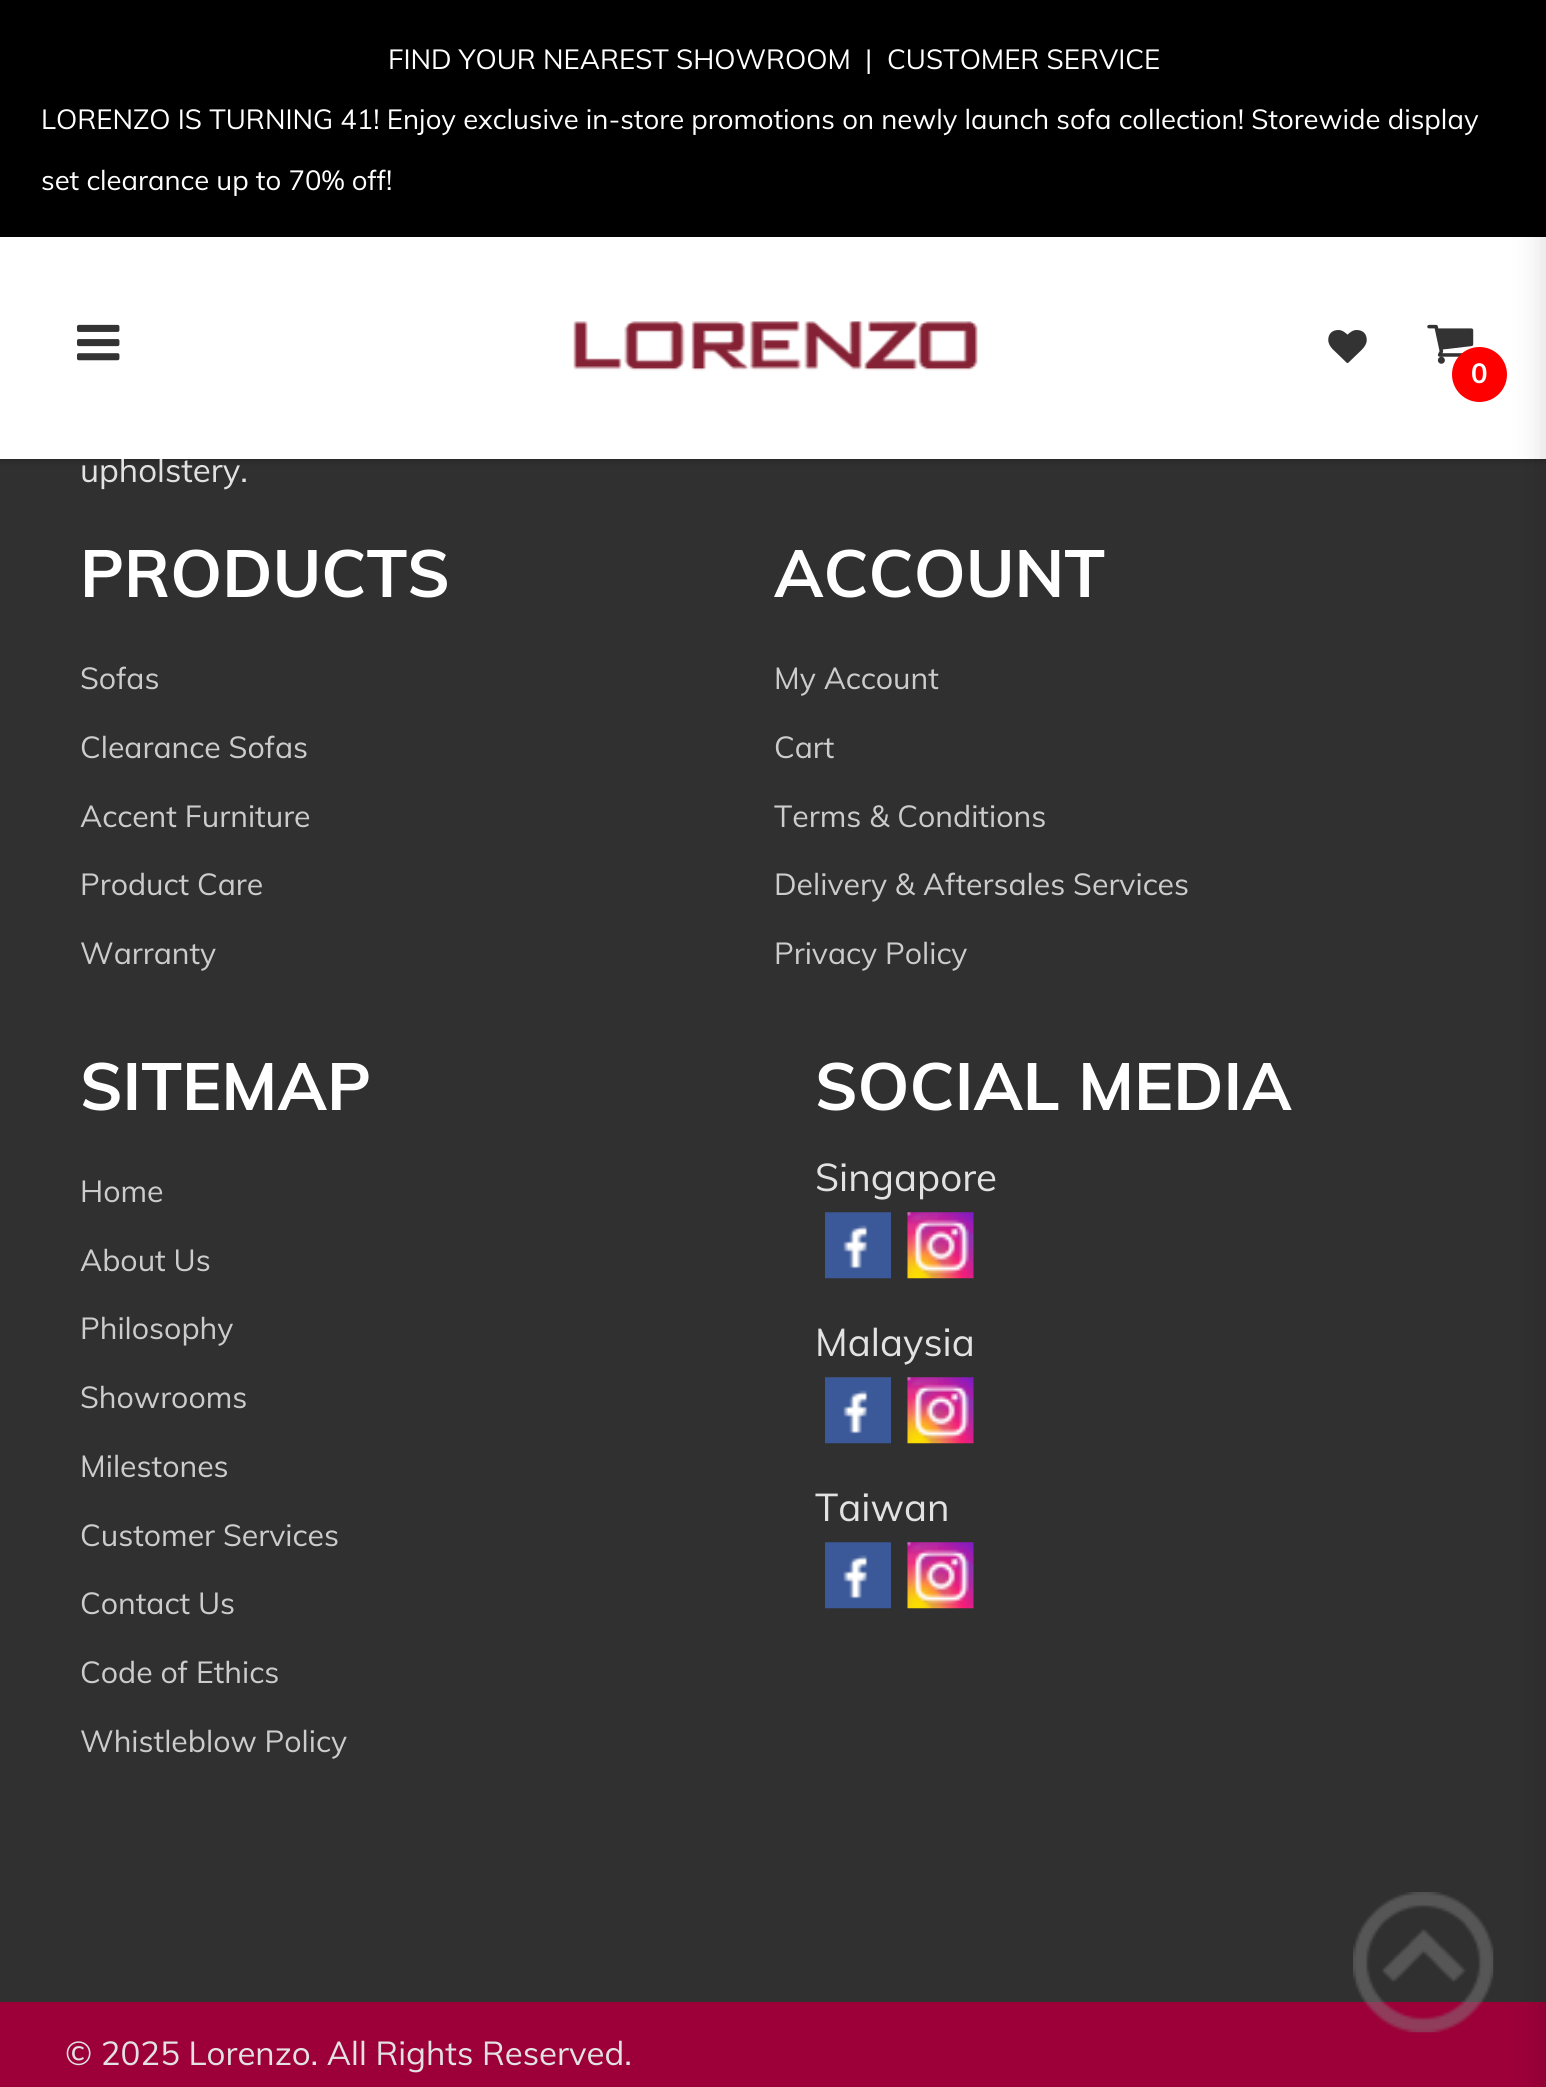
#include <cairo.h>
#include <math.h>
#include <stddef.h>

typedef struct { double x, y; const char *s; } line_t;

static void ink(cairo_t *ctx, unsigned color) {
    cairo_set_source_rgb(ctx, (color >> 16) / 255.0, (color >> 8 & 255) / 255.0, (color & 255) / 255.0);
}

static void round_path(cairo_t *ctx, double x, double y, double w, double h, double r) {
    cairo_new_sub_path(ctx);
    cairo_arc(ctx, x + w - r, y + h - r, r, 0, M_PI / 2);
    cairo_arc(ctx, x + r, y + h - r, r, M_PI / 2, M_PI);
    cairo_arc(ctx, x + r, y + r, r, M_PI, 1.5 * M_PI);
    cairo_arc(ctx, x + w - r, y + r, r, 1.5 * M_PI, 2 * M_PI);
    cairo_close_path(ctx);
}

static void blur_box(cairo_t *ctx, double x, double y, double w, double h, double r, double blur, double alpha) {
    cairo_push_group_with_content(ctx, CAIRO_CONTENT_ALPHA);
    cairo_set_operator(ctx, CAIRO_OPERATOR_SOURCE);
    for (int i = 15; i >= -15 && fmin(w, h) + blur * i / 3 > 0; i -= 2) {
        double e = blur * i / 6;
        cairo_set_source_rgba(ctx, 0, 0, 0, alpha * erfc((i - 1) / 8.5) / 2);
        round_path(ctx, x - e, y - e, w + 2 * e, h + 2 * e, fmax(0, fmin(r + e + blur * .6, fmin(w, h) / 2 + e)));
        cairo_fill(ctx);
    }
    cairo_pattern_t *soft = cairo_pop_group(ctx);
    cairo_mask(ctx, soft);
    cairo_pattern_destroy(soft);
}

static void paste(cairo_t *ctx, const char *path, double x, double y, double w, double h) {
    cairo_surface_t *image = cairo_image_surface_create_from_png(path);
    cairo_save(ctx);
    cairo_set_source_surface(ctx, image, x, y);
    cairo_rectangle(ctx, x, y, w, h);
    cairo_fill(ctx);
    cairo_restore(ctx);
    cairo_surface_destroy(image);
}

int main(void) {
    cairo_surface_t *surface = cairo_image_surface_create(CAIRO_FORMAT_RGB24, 1546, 2087);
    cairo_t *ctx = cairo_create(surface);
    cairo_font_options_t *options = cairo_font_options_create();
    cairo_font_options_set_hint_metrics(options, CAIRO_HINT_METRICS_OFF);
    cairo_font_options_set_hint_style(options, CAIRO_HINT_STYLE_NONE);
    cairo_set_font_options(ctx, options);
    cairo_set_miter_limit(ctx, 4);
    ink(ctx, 0x303030);
    cairo_paint(ctx);
    ink(ctx, 0x000000);
    blur_box(ctx, 0, 0, 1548, 459, 0, 4, 0.3);
    cairo_select_font_face(ctx, "Muli", CAIRO_FONT_SLANT_NORMAL, CAIRO_FONT_WEIGHT_NORMAL);
    cairo_set_font_size(ctx, 33);
    ink(ctx, 0xE2E2E2);
    cairo_move_to(ctx, 80, 482);
    cairo_show_text(ctx, "upholstery.");
    ink(ctx, 0xFFFFFF);
    cairo_rectangle(ctx, 0, 237, 1546, 222);
    cairo_fill(ctx);
    ink(ctx, 0x000000);
    cairo_rectangle(ctx, 0, 0, 1546, 237);
    cairo_fill(ctx);
    cairo_set_font_size(ctx, 27.5);
    ink(ctx, 0xFFFFFF);
    {
        static const line_t items[] = {
            {388, 69, "FIND YOUR NEAREST SHOWROOM"},
            {865, 69, "|"},
            {887, 69, "CUSTOMER SERVICE"},
            {41, 129, "LORENZO IS TURNING 41! Enjoy exclusive in-store promotions on newly launch sofa collection! Storewide display"},
            {41, 190, "set clearance up to 70% off!"},
        };
        for (size_t i = 0; i < sizeof items / sizeof *items; i++) {
            cairo_move_to(ctx, items[i].x, items[i].y);
            cairo_show_text(ctx, items[i].s);
        }
    }
    paste(ctx, "media/1.png", 77, 324, 43, 37);
    paste(ctx, "media/2.png", 573, 321, 405, 50);
    paste(ctx, "media/3.png", 1328, 330, 39, 33);
    paste(ctx, "media/4.png", 1427, 324, 47, 40);
    ink(ctx, 0xFF0000);
    cairo_arc(ctx, 1479.5, 374.5, 27.5, 0, 2 * M_PI);
    cairo_fill(ctx);
    cairo_select_font_face(ctx, "Muli", CAIRO_FONT_SLANT_NORMAL, CAIRO_FONT_WEIGHT_BOLD);
    ink(ctx, 0xFFFFFF);
    cairo_move_to(ctx, 1471, 383);
    cairo_show_text(ctx, "0");
    ink(ctx, 0x9D0039);
    cairo_rectangle(ctx, 0, 2002, 1546, 85);
    cairo_fill(ctx);
    ink(ctx, 0x000000);
    blur_box(ctx, 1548, 17, 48, 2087, 0, 16.5, 0.18);
    cairo_set_font_size(ctx, 66);
    ink(ctx, 0xFFFFFF);
    cairo_move_to(ctx, 80, 597);
    cairo_show_text(ctx, "PRODUCTS");
    cairo_select_font_face(ctx, "Muli", CAIRO_FONT_SLANT_NORMAL, CAIRO_FONT_WEIGHT_NORMAL);
    cairo_set_font_size(ctx, 30.25);
    ink(ctx, 0xCCCCCC);
    {
        static const line_t items[] = {
            {80, 689, "Sofas"},
            {80, 758, "Clearance Sofas"},
            {80, 827, "Accent Furniture"},
            {80, 895, "Product Care"},
            {80, 964, "Warranty"},
        };
        for (size_t i = 0; i < sizeof items / sizeof *items; i++) {
            cairo_move_to(ctx, items[i].x, items[i].y);
            cairo_show_text(ctx, items[i].s);
        }
    }
    cairo_select_font_face(ctx, "Muli", CAIRO_FONT_SLANT_NORMAL, CAIRO_FONT_WEIGHT_BOLD);
    cairo_set_font_size(ctx, 66);
    ink(ctx, 0xFFFFFF);
    cairo_move_to(ctx, 774, 597);
    cairo_show_text(ctx, "ACCOUNT");
    cairo_select_font_face(ctx, "Muli", CAIRO_FONT_SLANT_NORMAL, CAIRO_FONT_WEIGHT_NORMAL);
    cairo_set_font_size(ctx, 30.25);
    ink(ctx, 0xCCCCCC);
    {
        static const line_t items[] = {
            {774, 689, "My Account"},
            {774, 758, "Cart"},
            {774, 827, "Terms & Conditions"},
            {774, 895, "Delivery & Aftersales Services"},
            {774, 964, "Privacy Policy"},
        };
        for (size_t i = 0; i < sizeof items / sizeof *items; i++) {
            cairo_move_to(ctx, items[i].x, items[i].y);
            cairo_show_text(ctx, items[i].s);
        }
    }
    cairo_select_font_face(ctx, "Muli", CAIRO_FONT_SLANT_NORMAL, CAIRO_FONT_WEIGHT_BOLD);
    cairo_set_font_size(ctx, 66);
    ink(ctx, 0xFFFFFF);
    cairo_move_to(ctx, 80, 1110);
    cairo_show_text(ctx, "SITEMAP");
    cairo_select_font_face(ctx, "Muli", CAIRO_FONT_SLANT_NORMAL, CAIRO_FONT_WEIGHT_NORMAL);
    cairo_set_font_size(ctx, 30.25);
    ink(ctx, 0xCCCCCC);
    {
        static const line_t items[] = {
            {80, 1202, "Home"},
            {80, 1271, "About Us"},
            {80, 1339, "Philosophy"},
            {80, 1408, "Showrooms"},
            {80, 1477, "Milestones"},
            {80, 1546, "Customer Services"},
            {80, 1614, "Contact Us"},
            {80, 1683, "Code of Ethics"},
            {80, 1752, "Whistleblow Policy"},
        };
        for (size_t i = 0; i < sizeof items / sizeof *items; i++) {
            cairo_move_to(ctx, items[i].x, items[i].y);
            cairo_show_text(ctx, items[i].s);
        }
    }
    cairo_select_font_face(ctx, "Muli", CAIRO_FONT_SLANT_NORMAL, CAIRO_FONT_WEIGHT_BOLD);
    cairo_set_font_size(ctx, 66);
    ink(ctx, 0xFFFFFF);
    cairo_move_to(ctx, 815, 1110);
    cairo_show_text(ctx, "SOCIAL MEDIA");
    cairo_select_font_face(ctx, "Muli", CAIRO_FONT_SLANT_NORMAL, CAIRO_FONT_WEIGHT_NORMAL);
    cairo_set_font_size(ctx, 38.5);
    ink(ctx, 0xE2E2E2);
    cairo_move_to(ctx, 815, 1191);
    cairo_show_text(ctx, "Singapore");
    paste(ctx, "media/5.png", 825, 1212, 66, 67);
    paste(ctx, "media/6.png", 907, 1212, 67, 67);
    cairo_move_to(ctx, 815, 1356);
    cairo_show_text(ctx, "Malaysia");
    paste(ctx, "media/5.png", 825, 1377, 66, 67);
    paste(ctx, "media/6.png", 907, 1377, 67, 67);
    cairo_move_to(ctx, 815, 1521);
    cairo_show_text(ctx, "Taiwan");
    paste(ctx, "media/5.png", 825, 1542, 66, 67);
    paste(ctx, "media/6.png", 907, 1542, 67, 67);
    cairo_set_font_size(ctx, 33);
    cairo_move_to(ctx, 65, 2065);
    cairo_show_text(ctx, "© 2025 Lorenzo. All Rights Reserved.");
    paste(ctx, "media/7.png", 1353, 1892, 141, 141);
    cairo_surface_write_to_png(surface, "image.png");
    cairo_font_options_destroy(options);
    cairo_destroy(ctx);
    cairo_surface_destroy(surface);
    return 0;
}
